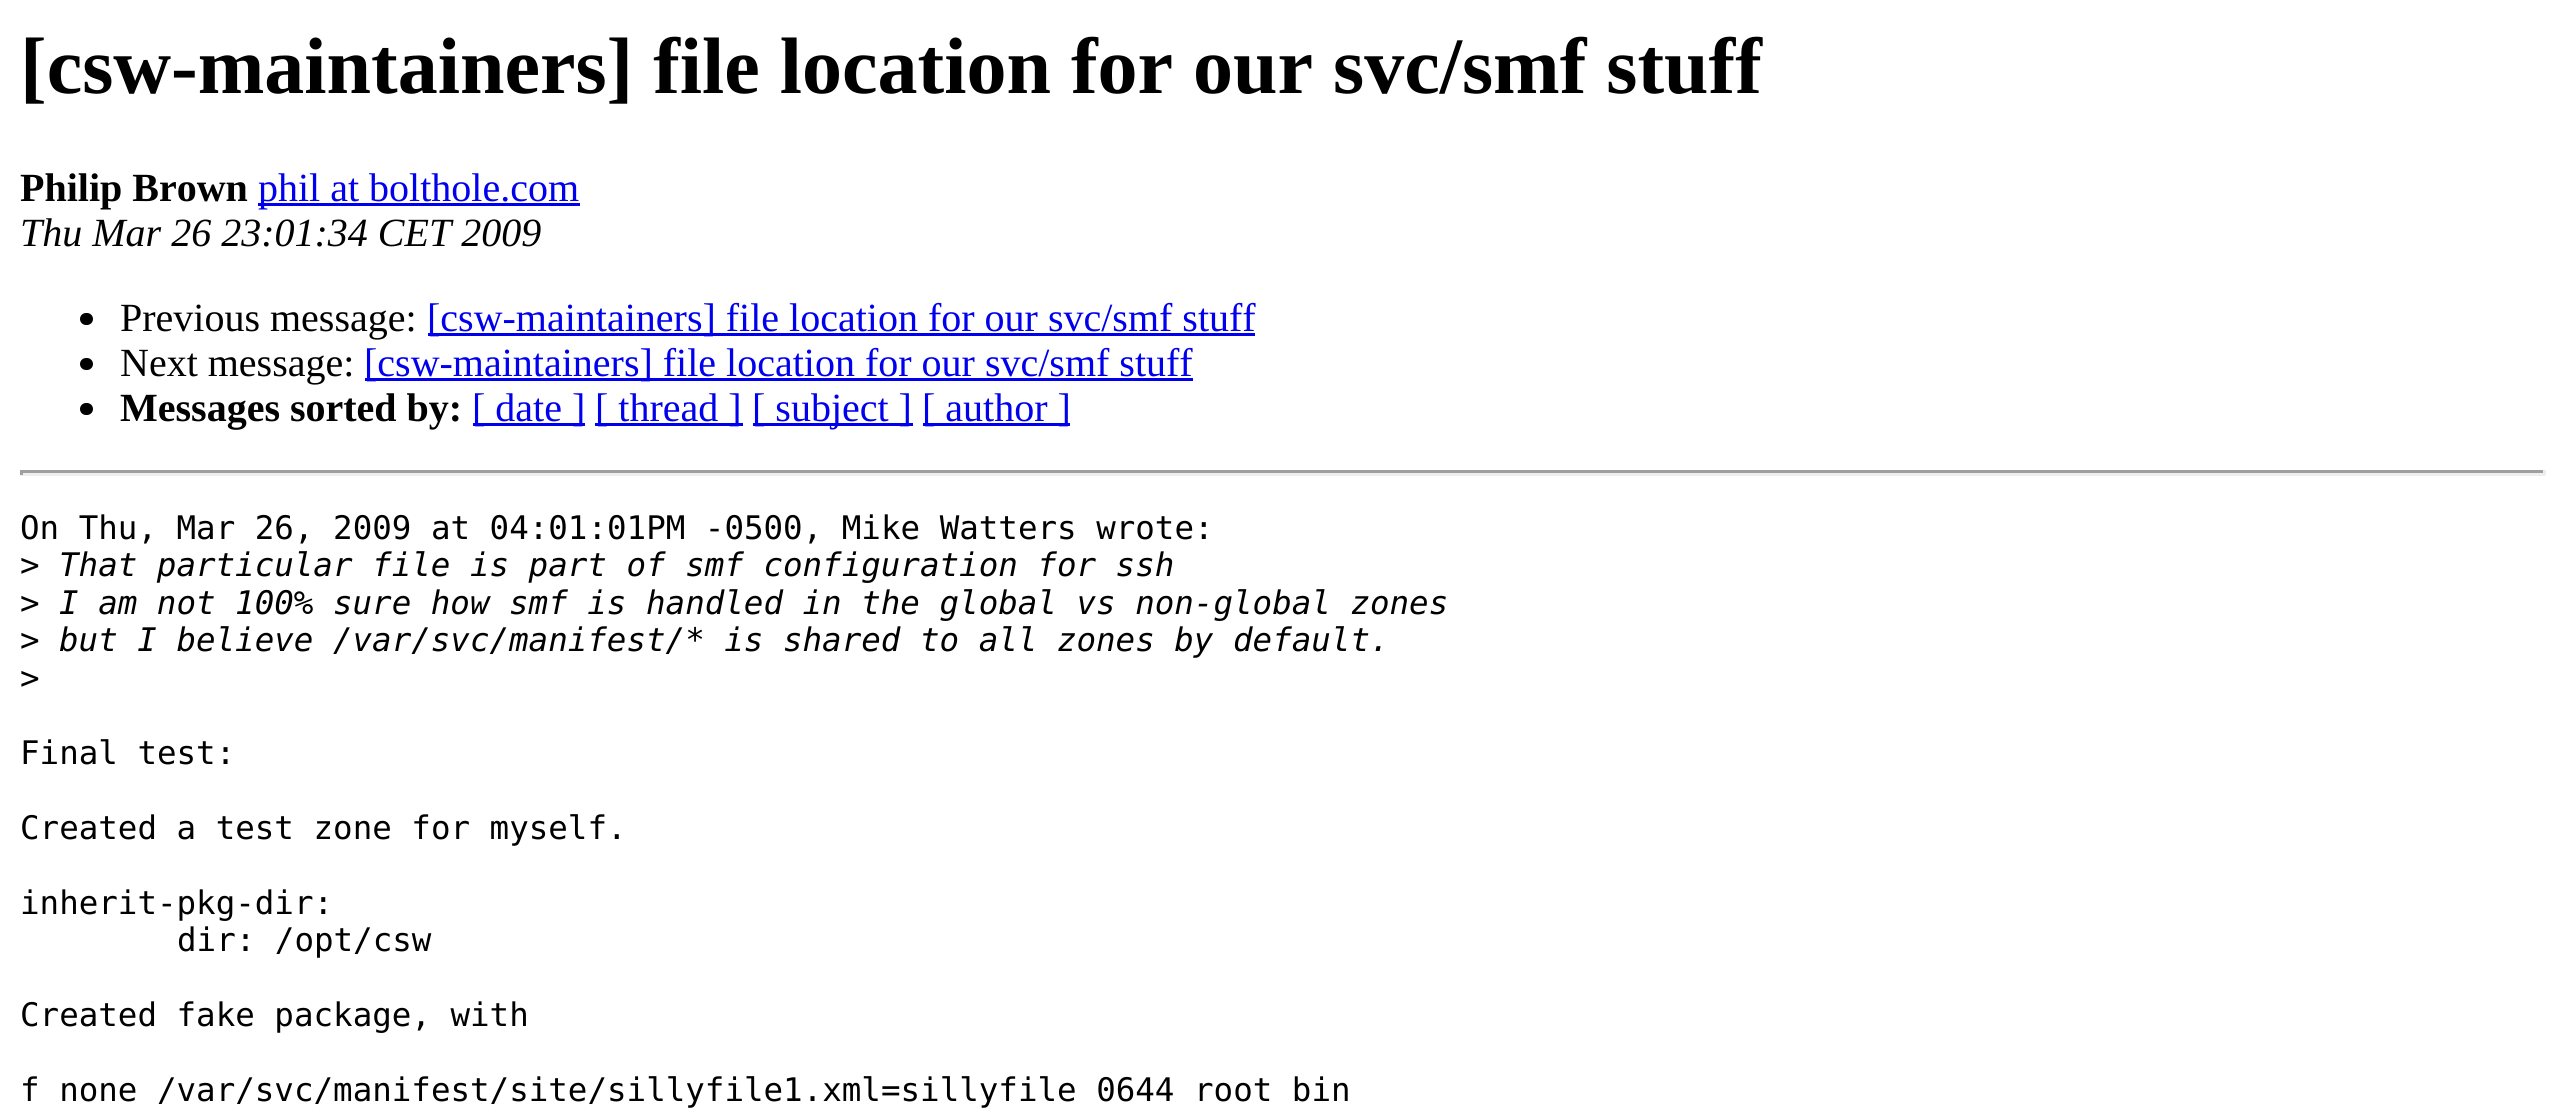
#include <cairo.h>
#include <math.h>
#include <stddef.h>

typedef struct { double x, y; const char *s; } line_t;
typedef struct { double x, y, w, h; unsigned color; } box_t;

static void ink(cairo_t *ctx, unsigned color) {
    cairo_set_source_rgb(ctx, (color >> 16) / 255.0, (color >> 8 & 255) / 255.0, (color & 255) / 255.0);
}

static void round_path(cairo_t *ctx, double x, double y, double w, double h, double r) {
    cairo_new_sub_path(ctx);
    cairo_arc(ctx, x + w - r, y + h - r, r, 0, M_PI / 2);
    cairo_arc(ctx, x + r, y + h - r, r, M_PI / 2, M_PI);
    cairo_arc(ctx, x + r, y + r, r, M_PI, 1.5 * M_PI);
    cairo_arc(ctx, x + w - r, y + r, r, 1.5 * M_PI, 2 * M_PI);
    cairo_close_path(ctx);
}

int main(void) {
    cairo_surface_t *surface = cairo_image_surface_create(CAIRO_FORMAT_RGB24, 2564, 1115);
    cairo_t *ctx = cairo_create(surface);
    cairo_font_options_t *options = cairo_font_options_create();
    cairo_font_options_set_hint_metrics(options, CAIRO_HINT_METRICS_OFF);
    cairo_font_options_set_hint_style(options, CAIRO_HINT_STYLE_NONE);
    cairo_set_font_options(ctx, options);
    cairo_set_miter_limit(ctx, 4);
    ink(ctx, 0xFFFFFF);
    cairo_paint(ctx);
    cairo_select_font_face(ctx, "Liberation Serif", CAIRO_FONT_SLANT_NORMAL, CAIRO_FONT_WEIGHT_BOLD);
    cairo_set_font_size(ctx, 80);
    ink(ctx, 0x000000);
    cairo_move_to(ctx, 20, 93);
    cairo_show_text(ctx, "[csw-maintainers] file location for our svc/smf stuff");
    cairo_set_font_size(ctx, 40);
    cairo_move_to(ctx, 20, 201);
    cairo_show_text(ctx, "Philip Brown");
    ink(ctx, 0x0000EE);
    cairo_rectangle(ctx, 258, 203, 322, 3);
    cairo_fill(ctx);
    cairo_select_font_face(ctx, "Liberation Serif", CAIRO_FONT_SLANT_NORMAL, CAIRO_FONT_WEIGHT_NORMAL);
    cairo_move_to(ctx, 258, 201);
    cairo_show_text(ctx, "phil at bolthole.com");
    cairo_select_font_face(ctx, "Liberation Serif", CAIRO_FONT_SLANT_ITALIC, CAIRO_FONT_WEIGHT_NORMAL);
    ink(ctx, 0x000000);
    cairo_move_to(ctx, 20, 246);
    cairo_show_text(ctx, "Thu Mar 26 23:01:34 CET 2009");
    round_path(ctx, 80, 313, 13, 12, 6);
    cairo_fill(ctx);
    cairo_select_font_face(ctx, "Liberation Serif", CAIRO_FONT_SLANT_NORMAL, CAIRO_FONT_WEIGHT_NORMAL);
    cairo_move_to(ctx, 120, 331);
    cairo_show_text(ctx, "Previous message:");
    ink(ctx, 0x0000EE);
    cairo_rectangle(ctx, 428, 333, 827, 3);
    cairo_fill(ctx);
    cairo_move_to(ctx, 427, 331);
    cairo_show_text(ctx, "[csw-maintainers] file location for our svc/smf stuff");
    ink(ctx, 0x000000);
    round_path(ctx, 80, 358, 13, 12, 6);
    cairo_fill(ctx);
    cairo_move_to(ctx, 120, 376);
    cairo_show_text(ctx, "Next message:");
    ink(ctx, 0x0000EE);
    cairo_rectangle(ctx, 365, 378, 828, 3);
    cairo_fill(ctx);
    cairo_move_to(ctx, 364, 376);
    cairo_show_text(ctx, "[csw-maintainers] file location for our svc/smf stuff");
    ink(ctx, 0x000000);
    round_path(ctx, 80, 403, 13, 12, 6);
    cairo_fill(ctx);
    cairo_select_font_face(ctx, "Liberation Serif", CAIRO_FONT_SLANT_NORMAL, CAIRO_FONT_WEIGHT_BOLD);
    cairo_move_to(ctx, 120, 421);
    cairo_show_text(ctx, "Messages sorted by:");
    ink(ctx, 0x0000EE);
    cairo_rectangle(ctx, 473, 423, 112, 3);
    cairo_fill(ctx);
    cairo_select_font_face(ctx, "Liberation Serif", CAIRO_FONT_SLANT_NORMAL, CAIRO_FONT_WEIGHT_NORMAL);
    cairo_move_to(ctx, 472, 421);
    cairo_show_text(ctx, "[ date ]");
    cairo_rectangle(ctx, 595, 423, 148, 3);
    cairo_fill(ctx);
    cairo_move_to(ctx, 595, 421);
    cairo_show_text(ctx, "[ thread ]");
    cairo_rectangle(ctx, 753, 423, 160, 3);
    cairo_fill(ctx);
    cairo_move_to(ctx, 752, 421);
    cairo_show_text(ctx, "[ subject ]");
    cairo_rectangle(ctx, 923, 423, 147, 3);
    cairo_fill(ctx);
    cairo_move_to(ctx, 922, 421);
    cairo_show_text(ctx, "[ author ]");
    {
        static const box_t items[] = {
            {20, 470, 2525, 3, 0x9F9F9F},
            {2543, 470, 3, 5, 0xEEEEEE},
            {20, 473, 2525, 3, 0xEEEEEE},
            {20, 470, 3, 5, 0x9F9F9F},
        };
        for (size_t i = 0; i < sizeof items / sizeof *items; i++) {
            ink(ctx, items[i].color);
            cairo_rectangle(ctx, items[i].x, items[i].y, items[i].w, items[i].h);
            cairo_fill(ctx);
        }
    }
    cairo_select_font_face(ctx, "DejaVu Sans Mono", CAIRO_FONT_SLANT_NORMAL, CAIRO_FONT_WEIGHT_NORMAL);
    cairo_set_font_size(ctx, 32.5);
    ink(ctx, 0x000000);
    cairo_move_to(ctx, 20, 539);
    cairo_show_text(ctx, "On Thu, Mar 26, 2009 at 04:01:01PM -0500, Mike Watters wrote:");
    cairo_move_to(ctx, 20, 576);
    cairo_show_text(ctx, ">");
    cairo_select_font_face(ctx, "DejaVu Sans Mono", CAIRO_FONT_SLANT_ITALIC, CAIRO_FONT_WEIGHT_NORMAL);
    cairo_move_to(ctx, 59, 576);
    cairo_show_text(ctx, "That particular file is part of smf configuration for ssh");
    cairo_select_font_face(ctx, "DejaVu Sans Mono", CAIRO_FONT_SLANT_NORMAL, CAIRO_FONT_WEIGHT_NORMAL);
    cairo_move_to(ctx, 20, 614);
    cairo_show_text(ctx, ">");
    cairo_select_font_face(ctx, "DejaVu Sans Mono", CAIRO_FONT_SLANT_ITALIC, CAIRO_FONT_WEIGHT_NORMAL);
    cairo_move_to(ctx, 59, 614);
    cairo_show_text(ctx, "I am not 100% sure how smf is handled in the global vs non-global zones");
    cairo_select_font_face(ctx, "DejaVu Sans Mono", CAIRO_FONT_SLANT_NORMAL, CAIRO_FONT_WEIGHT_NORMAL);
    cairo_move_to(ctx, 20, 651);
    cairo_show_text(ctx, ">");
    cairo_select_font_face(ctx, "DejaVu Sans Mono", CAIRO_FONT_SLANT_ITALIC, CAIRO_FONT_WEIGHT_NORMAL);
    cairo_move_to(ctx, 59, 651);
    cairo_show_text(ctx, "but I believe /var/svc/manifest/* is shared to all zones by default.");
    cairo_select_font_face(ctx, "DejaVu Sans Mono", CAIRO_FONT_SLANT_NORMAL, CAIRO_FONT_WEIGHT_NORMAL);
    {
        static const line_t items[] = {
            {20, 689, ">"},
            {20, 764, "Final test:"},
            {20, 839, "Created a test zone for myself."},
            {20, 914, "inherit-pkg-dir:"},
            {177, 951, "dir: /opt/csw"},
            {20, 1026, "Created fake package, with"},
            {20, 1101, "f none /var/svc/manifest/site/sillyfile1.xml=sillyfile 0644 root bin"},
        };
        for (size_t i = 0; i < sizeof items / sizeof *items; i++) {
            cairo_move_to(ctx, items[i].x, items[i].y);
            cairo_show_text(ctx, items[i].s);
        }
    }
    cairo_surface_write_to_png(surface, "image.png");
    cairo_font_options_destroy(options);
    cairo_destroy(ctx);
    cairo_surface_destroy(surface);
    return 0;
}
